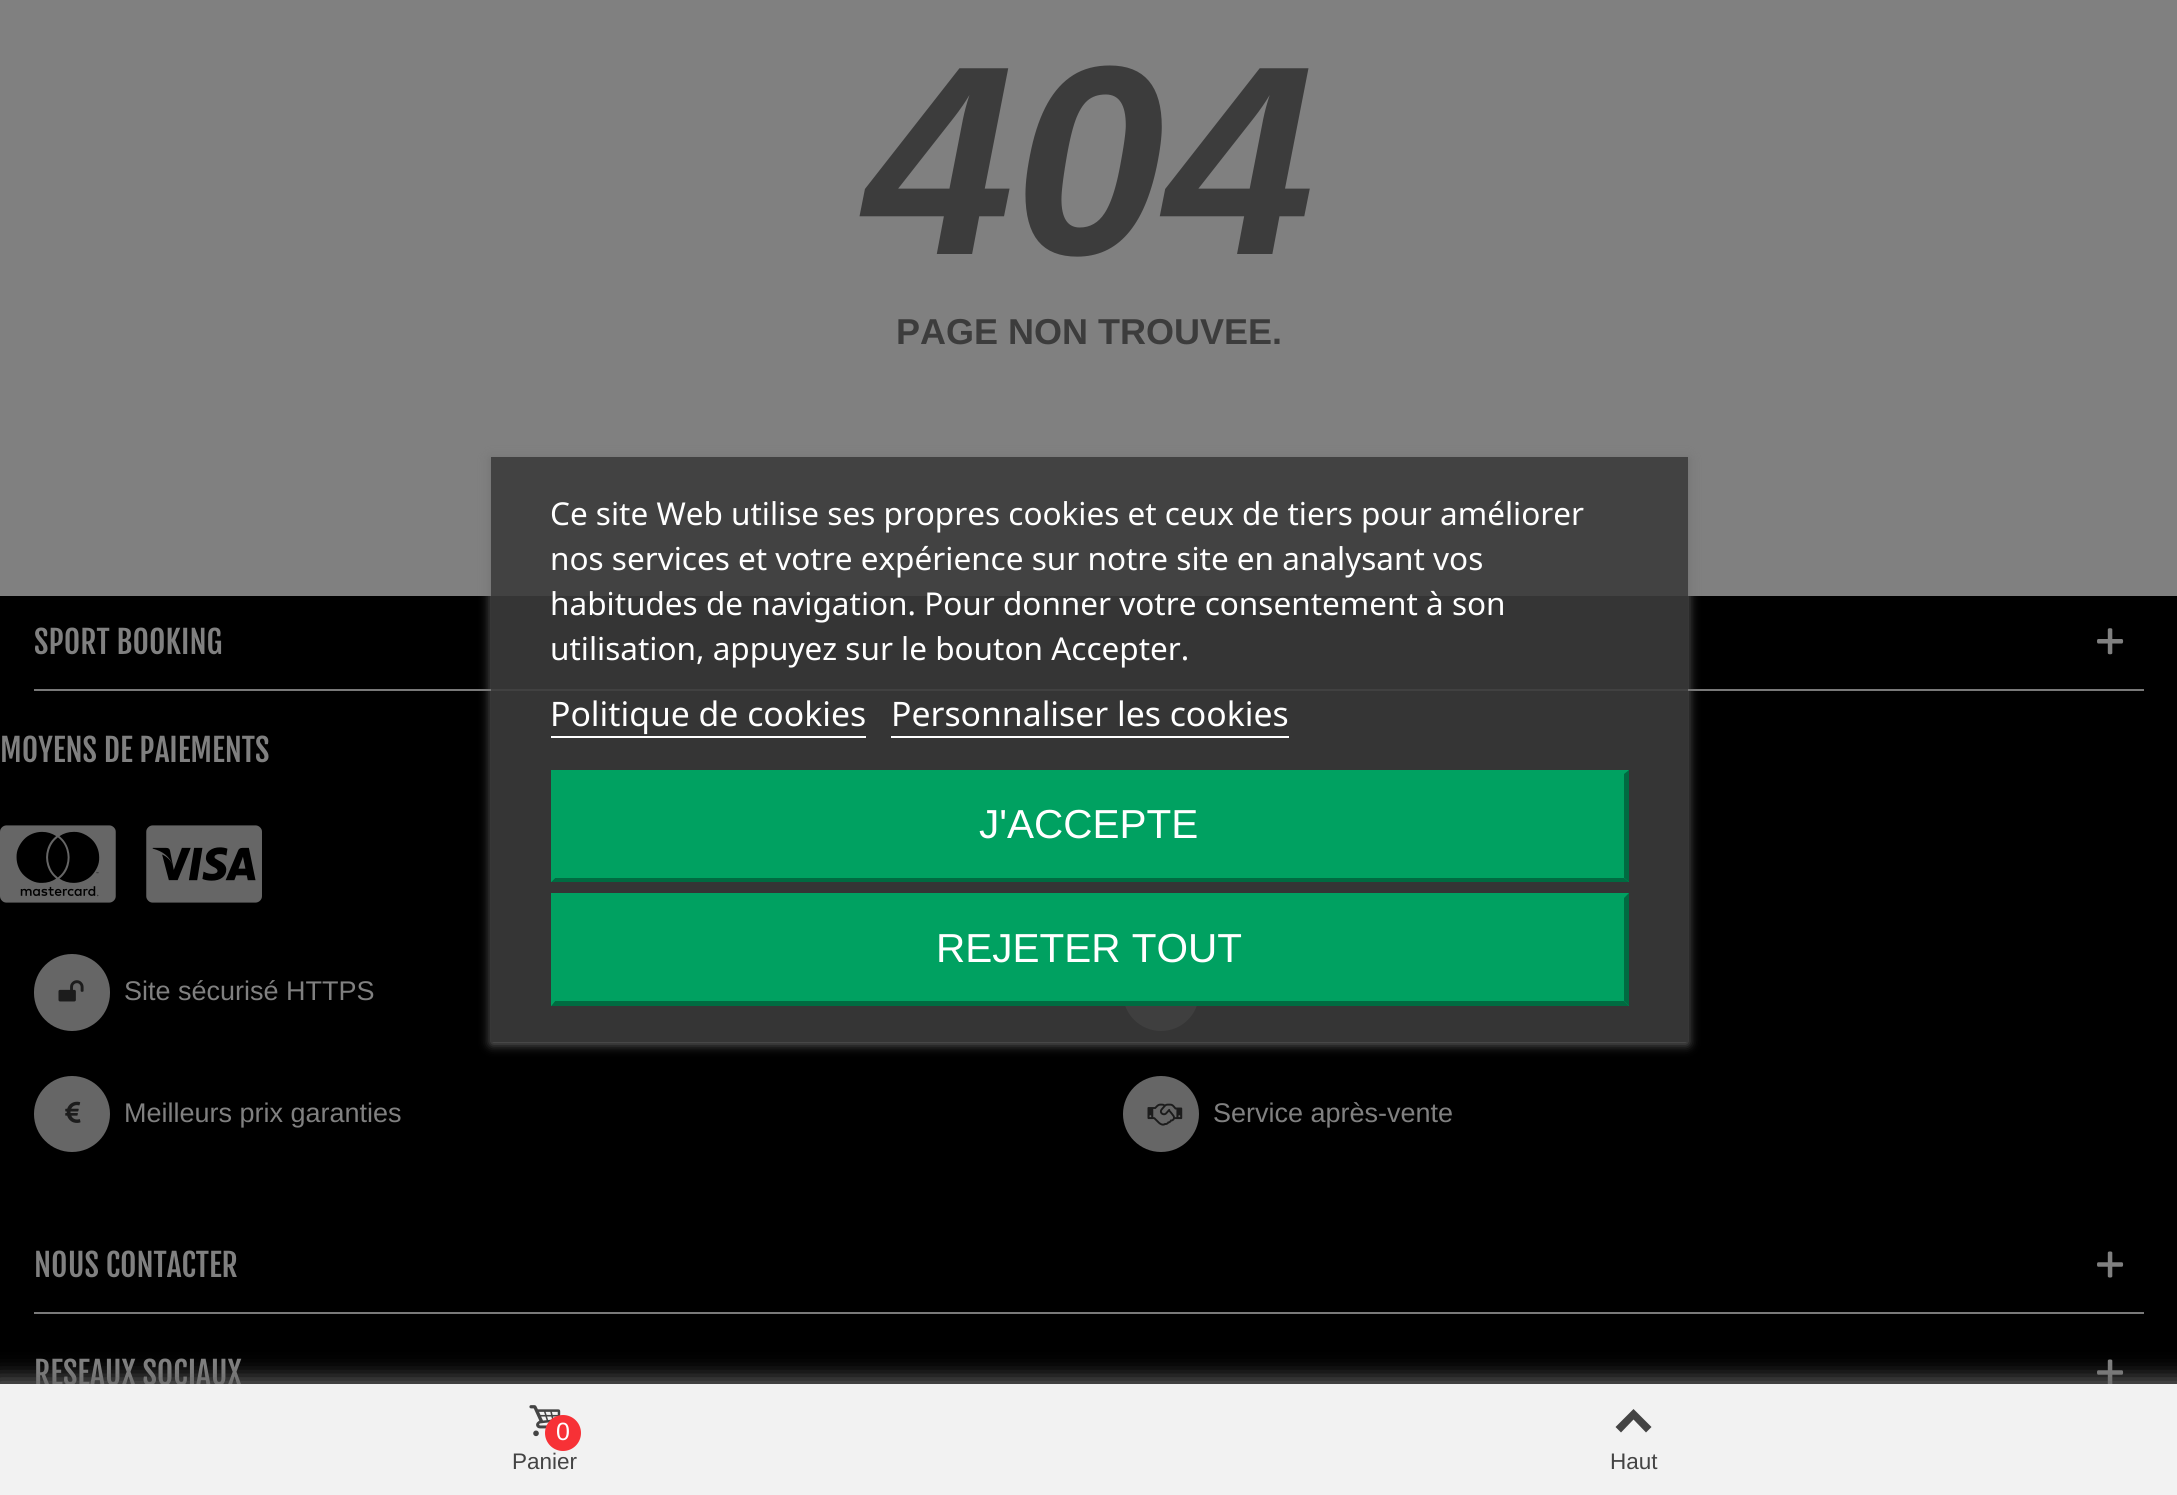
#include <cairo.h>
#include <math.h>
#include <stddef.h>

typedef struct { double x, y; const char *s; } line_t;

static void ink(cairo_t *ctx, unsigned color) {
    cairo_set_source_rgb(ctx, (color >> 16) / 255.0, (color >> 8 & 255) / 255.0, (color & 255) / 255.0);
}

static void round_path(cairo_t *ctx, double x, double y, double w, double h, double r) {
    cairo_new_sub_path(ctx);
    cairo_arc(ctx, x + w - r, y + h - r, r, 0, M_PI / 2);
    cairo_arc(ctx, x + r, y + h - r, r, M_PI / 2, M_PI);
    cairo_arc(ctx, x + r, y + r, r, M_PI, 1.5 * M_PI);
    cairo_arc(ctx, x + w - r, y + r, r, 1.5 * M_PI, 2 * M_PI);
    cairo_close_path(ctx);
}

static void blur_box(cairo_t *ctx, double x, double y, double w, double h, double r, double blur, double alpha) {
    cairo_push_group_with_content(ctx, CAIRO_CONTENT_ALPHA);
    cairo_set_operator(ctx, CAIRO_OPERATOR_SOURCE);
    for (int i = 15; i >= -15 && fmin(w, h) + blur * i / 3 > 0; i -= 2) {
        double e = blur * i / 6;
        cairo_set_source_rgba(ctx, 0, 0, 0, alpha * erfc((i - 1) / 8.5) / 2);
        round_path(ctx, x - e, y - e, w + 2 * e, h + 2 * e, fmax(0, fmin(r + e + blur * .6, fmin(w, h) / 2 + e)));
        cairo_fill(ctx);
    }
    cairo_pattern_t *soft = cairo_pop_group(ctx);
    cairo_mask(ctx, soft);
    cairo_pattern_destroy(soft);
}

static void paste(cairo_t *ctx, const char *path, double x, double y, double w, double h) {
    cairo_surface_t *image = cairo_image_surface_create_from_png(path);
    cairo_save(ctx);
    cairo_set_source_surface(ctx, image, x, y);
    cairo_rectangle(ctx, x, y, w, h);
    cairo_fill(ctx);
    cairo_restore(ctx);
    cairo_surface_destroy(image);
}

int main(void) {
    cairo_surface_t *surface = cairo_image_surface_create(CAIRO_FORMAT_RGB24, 2177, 1495);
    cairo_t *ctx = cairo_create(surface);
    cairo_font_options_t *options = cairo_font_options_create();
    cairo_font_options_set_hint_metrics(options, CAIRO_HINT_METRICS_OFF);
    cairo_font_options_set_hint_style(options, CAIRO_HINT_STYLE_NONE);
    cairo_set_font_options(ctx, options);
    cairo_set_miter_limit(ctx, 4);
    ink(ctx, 0x808080);
    cairo_paint(ctx);
    cairo_select_font_face(ctx, "Liberation Sans", CAIRO_FONT_SLANT_ITALIC, CAIRO_FONT_WEIGHT_BOLD);
    cairo_set_font_size(ctx, 270);
    ink(ctx, 0x3C3C3C);
    cairo_move_to(ctx, 864, 254);
    cairo_show_text(ctx, "404");
    cairo_select_font_face(ctx, "Liberation Sans", CAIRO_FONT_SLANT_NORMAL, CAIRO_FONT_WEIGHT_BOLD);
    cairo_set_font_size(ctx, 36);
    cairo_move_to(ctx, 896, 344);
    cairo_show_text(ctx, "PAGE NON TROUVEE.");
    ink(ctx, 0x000000);
    cairo_rectangle(ctx, 0, 596, 2177, 788);
    cairo_fill(ctx);
    ink(ctx, 0x797979);
    cairo_rectangle(ctx, 34, 689, 2110, 2);
    cairo_fill(ctx);
    cairo_select_font_face(ctx, "Fjalla One", CAIRO_FONT_SLANT_NORMAL, CAIRO_FONT_WEIGHT_NORMAL);
    cairo_set_font_size(ctx, 31.5);
    ink(ctx, 0x808080);
    cairo_move_to(ctx, 34, 654);
    cairo_show_text(ctx, "SPORT BOOKING");
    paste(ctx, "media/1.png", 2097, 628, 27, 27);
    ink(ctx, 0x666666);
    round_path(ctx, 1123, 954, 76, 77, 38);
    cairo_fill(ctx);
    cairo_save(ctx);
    cairo_set_fill_rule(ctx, CAIRO_FILL_RULE_EVEN_ODD);
    cairo_new_path(ctx);
    cairo_move_to(ctx, 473, 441);
    cairo_line_to(ctx, 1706, 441);
    cairo_line_to(ctx, 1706, 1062);
    cairo_line_to(ctx, 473, 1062);
    cairo_close_path(ctx);
    cairo_move_to(ctx, 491, 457);
    cairo_line_to(ctx, 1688, 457);
    cairo_line_to(ctx, 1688, 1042);
    cairo_line_to(ctx, 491, 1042);
    cairo_close_path(ctx);
    cairo_clip(ctx);
    ink(ctx, 0x707070);
    blur_box(ctx, 491, 459, 1197, 585, 0, 5.5, 1);
    cairo_restore(ctx);
    cairo_set_source_rgba(ctx, 0.231, 0.231, 0.231, 0.9);
    cairo_rectangle(ctx, 491, 457, 1197, 585);
    cairo_fill(ctx);
    cairo_select_font_face(ctx, "Noto Sans", CAIRO_FONT_SLANT_NORMAL, CAIRO_FONT_WEIGHT_NORMAL);
    ink(ctx, 0xFFFFFF);
    {
        static const line_t items[] = {
            {550, 525, "Ce site Web utilise ses propres cookies et ceux de tiers pour améliorer"},
            {550, 570, "nos services et votre expérience sur notre site en analysant vos"},
            {550, 615, "habitudes de navigation. Pour donner votre consentement à son"},
            {550, 660, "utilisation, appuyez sur le bouton Accepter."},
        };
        for (size_t i = 0; i < sizeof items / sizeof *items; i++) {
            cairo_move_to(ctx, items[i].x, items[i].y);
            cairo_show_text(ctx, items[i].s);
        }
    }
    cairo_set_font_size(ctx, 33.75);
    cairo_move_to(ctx, 550, 726);
    cairo_show_text(ctx, "Politique de cookies");
    cairo_rectangle(ctx, 551, 736, 315, 2);
    cairo_fill(ctx);
    cairo_move_to(ctx, 891, 726);
    cairo_show_text(ctx, "Personnaliser les cookies");
    cairo_rectangle(ctx, 891, 736, 398, 2);
    cairo_fill(ctx);
    ink(ctx, 0x00A161);
    cairo_rectangle(ctx, 551, 770, 1078, 112);
    cairo_fill(ctx);
    ink(ctx, 0x006B41);
    cairo_new_path(ctx);
    cairo_move_to(ctx, 1629, 770);
    cairo_line_to(ctx, 1629, 882);
    cairo_line_to(ctx, 1624, 878);
    cairo_line_to(ctx, 1624, 774);
    cairo_close_path(ctx);
    cairo_fill(ctx);
    cairo_new_path(ctx);
    cairo_move_to(ctx, 1629, 882);
    cairo_line_to(ctx, 551, 882);
    cairo_line_to(ctx, 555, 878);
    cairo_line_to(ctx, 1624, 878);
    cairo_close_path(ctx);
    cairo_fill(ctx);
    ink(ctx, 0x00A161);
    cairo_new_path(ctx);
    cairo_move_to(ctx, 551, 882);
    cairo_line_to(ctx, 551, 770);
    cairo_line_to(ctx, 555, 774);
    cairo_line_to(ctx, 555, 878);
    cairo_close_path(ctx);
    cairo_fill(ctx);
    cairo_select_font_face(ctx, "Liberation Sans", CAIRO_FONT_SLANT_NORMAL, CAIRO_FONT_WEIGHT_NORMAL);
    cairo_set_font_size(ctx, 40.5);
    ink(ctx, 0xFFFFFF);
    cairo_move_to(ctx, 979, 838);
    cairo_show_text(ctx, "J'ACCEPTE");
    ink(ctx, 0x00A161);
    cairo_rectangle(ctx, 551, 893, 1078, 113);
    cairo_fill(ctx);
    ink(ctx, 0x006B41);
    cairo_new_path(ctx);
    cairo_move_to(ctx, 1629, 893);
    cairo_line_to(ctx, 1629, 1006);
    cairo_line_to(ctx, 1624, 1001);
    cairo_line_to(ctx, 1624, 898);
    cairo_close_path(ctx);
    cairo_fill(ctx);
    cairo_new_path(ctx);
    cairo_move_to(ctx, 1629, 1006);
    cairo_line_to(ctx, 551, 1006);
    cairo_line_to(ctx, 555, 1001);
    cairo_line_to(ctx, 1624, 1001);
    cairo_close_path(ctx);
    cairo_fill(ctx);
    ink(ctx, 0x00A161);
    cairo_new_path(ctx);
    cairo_move_to(ctx, 551, 1006);
    cairo_line_to(ctx, 551, 893);
    cairo_line_to(ctx, 555, 898);
    cairo_line_to(ctx, 555, 1001);
    cairo_close_path(ctx);
    cairo_fill(ctx);
    ink(ctx, 0xFFFFFF);
    cairo_move_to(ctx, 936, 962);
    cairo_show_text(ctx, "REJETER TOUT");
    cairo_select_font_face(ctx, "Fjalla One", CAIRO_FONT_SLANT_NORMAL, CAIRO_FONT_WEIGHT_NORMAL);
    cairo_set_font_size(ctx, 31.5);
    ink(ctx, 0x808080);
    cairo_move_to(ctx, 0, 762);
    cairo_show_text(ctx, "MOYENS DE PAIEMENTS");
    paste(ctx, "media/2.png", 0, 825, 116, 78);
    paste(ctx, "media/3.png", 146, 825, 116, 78);
    ink(ctx, 0x666666);
    round_path(ctx, 34, 954, 76, 77, 38);
    cairo_fill(ctx);
    paste(ctx, "media/4.png", 58, 980, 26, 22);
    cairo_select_font_face(ctx, "Liberation Sans", CAIRO_FONT_SLANT_NORMAL, CAIRO_FONT_WEIGHT_NORMAL);
    cairo_set_font_size(ctx, 27);
    ink(ctx, 0x808080);
    cairo_move_to(ctx, 124, 1000);
    cairo_show_text(ctx, "Site sécurisé HTTPS");
    ink(ctx, 0x666666);
    cairo_new_path(ctx);
    cairo_arc(ctx, 72, 1114, 38, 0, 2 * M_PI);
    cairo_fill(ctx);
    paste(ctx, "media/5.png", 65, 1101, 16, 22);
    ink(ctx, 0x808080);
    cairo_move_to(ctx, 124, 1122);
    cairo_show_text(ctx, "Meilleurs prix garanties");
    ink(ctx, 0x666666);
    cairo_new_path(ctx);
    cairo_arc(ctx, 1161, 1114, 38, 0, 2 * M_PI);
    cairo_fill(ctx);
    paste(ctx, "media/6.png", 1147, 1103, 36, 23);
    ink(ctx, 0x808080);
    cairo_move_to(ctx, 1213, 1122);
    cairo_show_text(ctx, "Service après-vente");
    ink(ctx, 0x797979);
    cairo_rectangle(ctx, 34, 1312, 2110, 2);
    cairo_fill(ctx);
    cairo_select_font_face(ctx, "Fjalla One", CAIRO_FONT_SLANT_NORMAL, CAIRO_FONT_WEIGHT_NORMAL);
    cairo_set_font_size(ctx, 31.5);
    ink(ctx, 0x808080);
    cairo_move_to(ctx, 34, 1277);
    cairo_show_text(ctx, "NOUS CONTACTER");
    paste(ctx, "media/7.png", 2097, 1251, 27, 27);
    cairo_move_to(ctx, 34, 1385);
    cairo_show_text(ctx, "RESEAUX SOCIAUX");
    paste(ctx, "media/8.png", 2097, 1359, 27, 25);
    ink(ctx, 0x656565);
    blur_box(ctx, -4, 1379, 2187, 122, 0, 11, 1);
    ink(ctx, 0xF2F2F2);
    cairo_rectangle(ctx, 0, 1384, 2177, 111);
    cairo_fill(ctx);
    paste(ctx, "media/9.png", 529, 1405, 32, 32);
    ink(ctx, 0xF73136);
    cairo_arc(ctx, 563, 1433, 18, 0, 2 * M_PI);
    cairo_fill(ctx);
    cairo_select_font_face(ctx, "Liberation Sans", CAIRO_FONT_SLANT_NORMAL, CAIRO_FONT_WEIGHT_NORMAL);
    cairo_set_font_size(ctx, 25);
    ink(ctx, 0xFFFFFF);
    cairo_move_to(ctx, 556, 1440);
    cairo_show_text(ctx, "0");
    cairo_set_font_size(ctx, 22.5);
    ink(ctx, 0x444444);
    cairo_move_to(ctx, 512, 1469);
    cairo_show_text(ctx, "Panier");
    cairo_new_path(ctx);
    cairo_move_to(ctx, 1615.5, 1427);
    cairo_line_to(ctx, 1633.5, 1409);
    cairo_line_to(ctx, 1651.5, 1427);
    cairo_line_to(ctx, 1646, 1432.5);
    cairo_line_to(ctx, 1633.5, 1419.5);
    cairo_line_to(ctx, 1621, 1432.5);
    cairo_close_path(ctx);
    cairo_fill(ctx);
    cairo_move_to(ctx, 1610, 1469);
    cairo_show_text(ctx, "Haut");
    cairo_surface_write_to_png(surface, "image.png");
    cairo_font_options_destroy(options);
    cairo_destroy(ctx);
    cairo_surface_destroy(surface);
    return 0;
}
